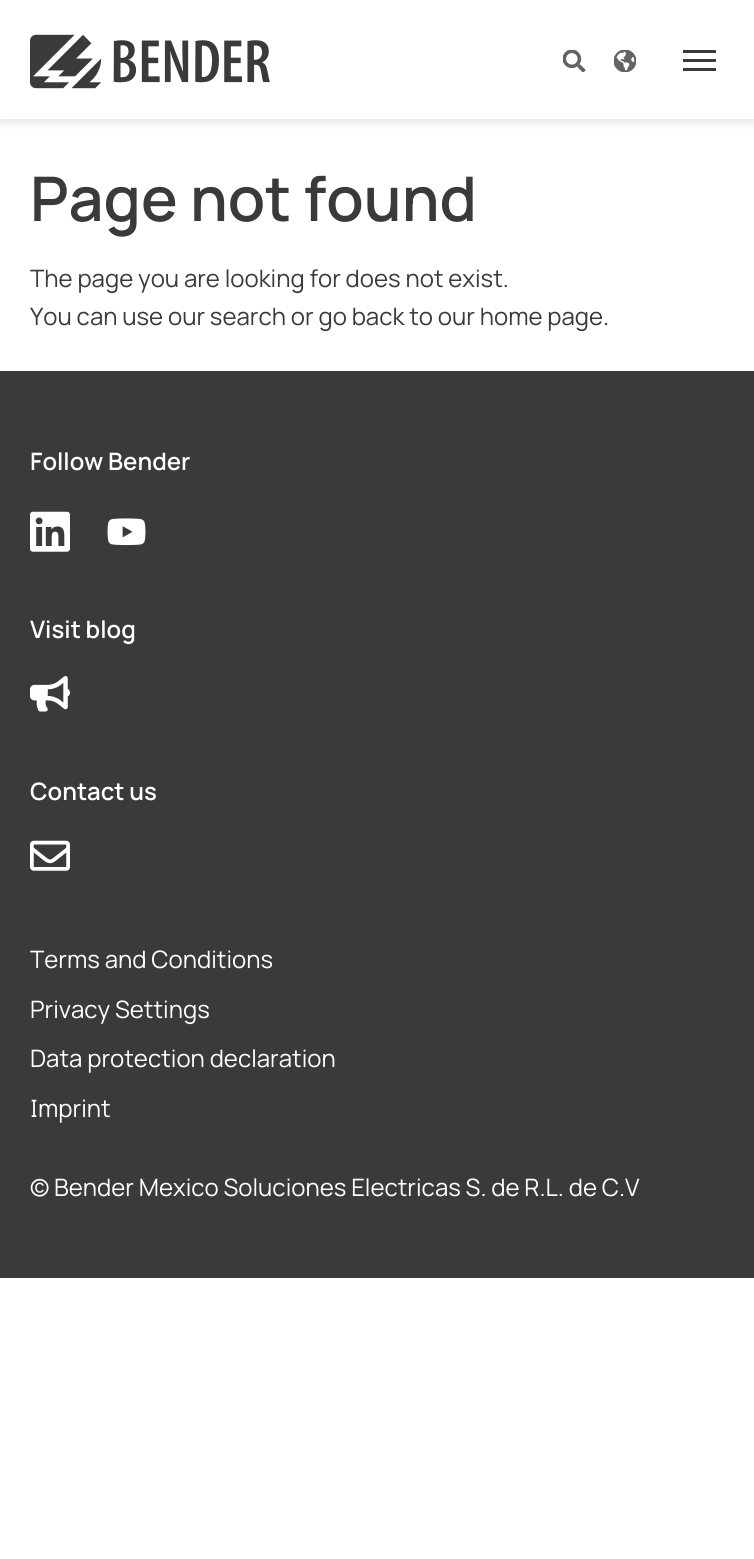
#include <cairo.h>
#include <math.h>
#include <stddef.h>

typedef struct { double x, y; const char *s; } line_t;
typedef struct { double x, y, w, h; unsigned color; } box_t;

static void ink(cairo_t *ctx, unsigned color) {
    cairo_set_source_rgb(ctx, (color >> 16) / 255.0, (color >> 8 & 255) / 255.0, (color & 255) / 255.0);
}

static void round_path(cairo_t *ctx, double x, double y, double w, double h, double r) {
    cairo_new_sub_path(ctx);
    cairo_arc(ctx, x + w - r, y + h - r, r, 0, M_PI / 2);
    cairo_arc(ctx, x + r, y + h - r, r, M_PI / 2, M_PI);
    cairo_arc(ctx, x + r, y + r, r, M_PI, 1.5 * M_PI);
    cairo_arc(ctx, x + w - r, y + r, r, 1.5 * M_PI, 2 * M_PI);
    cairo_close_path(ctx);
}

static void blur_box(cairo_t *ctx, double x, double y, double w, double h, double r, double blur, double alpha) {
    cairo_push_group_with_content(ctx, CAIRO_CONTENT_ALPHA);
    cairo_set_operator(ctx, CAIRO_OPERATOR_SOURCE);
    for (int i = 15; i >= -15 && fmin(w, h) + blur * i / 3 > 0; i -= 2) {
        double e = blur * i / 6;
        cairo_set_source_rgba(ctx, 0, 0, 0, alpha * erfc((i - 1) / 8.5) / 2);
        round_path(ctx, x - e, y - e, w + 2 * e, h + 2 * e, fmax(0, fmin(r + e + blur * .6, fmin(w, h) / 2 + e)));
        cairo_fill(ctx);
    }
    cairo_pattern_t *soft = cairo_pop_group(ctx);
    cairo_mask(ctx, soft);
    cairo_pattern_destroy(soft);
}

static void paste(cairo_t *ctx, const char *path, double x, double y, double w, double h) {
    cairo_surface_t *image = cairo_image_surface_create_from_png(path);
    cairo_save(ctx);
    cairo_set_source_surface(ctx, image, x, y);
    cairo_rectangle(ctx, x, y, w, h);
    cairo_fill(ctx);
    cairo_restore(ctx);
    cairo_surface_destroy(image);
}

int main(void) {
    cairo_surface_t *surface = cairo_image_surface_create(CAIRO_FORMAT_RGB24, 754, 1559);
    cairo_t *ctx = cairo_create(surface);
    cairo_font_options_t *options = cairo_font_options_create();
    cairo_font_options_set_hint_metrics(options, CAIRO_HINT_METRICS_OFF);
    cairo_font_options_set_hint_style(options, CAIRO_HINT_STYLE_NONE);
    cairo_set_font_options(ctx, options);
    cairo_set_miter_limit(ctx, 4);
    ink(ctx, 0xFFFFFF);
    cairo_paint(ctx);
    ink(ctx, 0x000000);
    blur_box(ctx, 0, 5, 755, 118, 0, 4.5, 0.1);
    ink(ctx, 0xFFFFFF);
    cairo_rectangle(ctx, 0, 0, 754, 119);
    cairo_fill(ctx);
    paste(ctx, "media/1.png", 30, 34, 240, 55);
    paste(ctx, "media/2.png", 563, 50, 23, 22);
    paste(ctx, "media/3.png", 614, 50, 22, 22);
    {
        static const box_t items[] = {
            {683, 59, 33, 3, 0x3A3A3A},
            {683, 50, 33, 3, 0x3A3A3A},
            {683, 68, 33, 3, 0x3A3A3A},
        };
        for (size_t i = 0; i < sizeof items / sizeof *items; i++) {
            ink(ctx, items[i].color);
            cairo_rectangle(ctx, items[i].x, items[i].y, items[i].w, items[i].h);
            cairo_fill(ctx);
        }
    }
    cairo_select_font_face(ctx, "Manrope SemiBold", CAIRO_FONT_SLANT_NORMAL, CAIRO_FONT_WEIGHT_NORMAL);
    cairo_set_font_size(ctx, 61.5);
    cairo_move_to(ctx, 30, 221);
    cairo_show_text(ctx, "Page not found");
    cairo_select_font_face(ctx, "Manrope", CAIRO_FONT_SLANT_NORMAL, CAIRO_FONT_WEIGHT_NORMAL);
    cairo_set_font_size(ctx, 24);
    cairo_move_to(ctx, 30, 287);
    cairo_show_text(ctx, "The page you are looking for does not exist.");
    cairo_move_to(ctx, 30, 325);
    cairo_show_text(ctx, "You can use our search or go back to our home page.");
    cairo_rectangle(ctx, 0, 371, 754, 907);
    cairo_fill(ctx);
    cairo_select_font_face(ctx, "Manrope SemiBold", CAIRO_FONT_SLANT_NORMAL, CAIRO_FONT_WEIGHT_NORMAL);
    ink(ctx, 0xFFFFFF);
    cairo_move_to(ctx, 30, 470);
    cairo_show_text(ctx, "Follow Bender");
    paste(ctx, "media/4.png", 30, 511, 40, 41);
    paste(ctx, "media/5.png", 107, 518, 39, 28);
    cairo_move_to(ctx, 30, 638);
    cairo_show_text(ctx, "Visit blog");
    paste(ctx, "media/6.png", 30, 676, 40, 36);
    cairo_move_to(ctx, 30, 800);
    cairo_show_text(ctx, "Contact us");
    paste(ctx, "media/7.png", 30, 840, 40, 31);
    cairo_select_font_face(ctx, "Manrope", CAIRO_FONT_SLANT_NORMAL, CAIRO_FONT_WEIGHT_NORMAL);
    {
        static const line_t items[] = {
            {30, 968, "Terms and Conditions"},
            {30, 1018, "Privacy Settings"},
            {30, 1067, "Data protection declaration"},
            {30, 1117, "Imprint"},
            {30, 1196, "© Bender Mexico Soluciones Electricas S. de R.L. de C.V"},
        };
        for (size_t i = 0; i < sizeof items / sizeof *items; i++) {
            cairo_move_to(ctx, items[i].x, items[i].y);
            cairo_show_text(ctx, items[i].s);
        }
    }
    cairo_surface_write_to_png(surface, "image.png");
    cairo_font_options_destroy(options);
    cairo_destroy(ctx);
    cairo_surface_destroy(surface);
    return 0;
}
